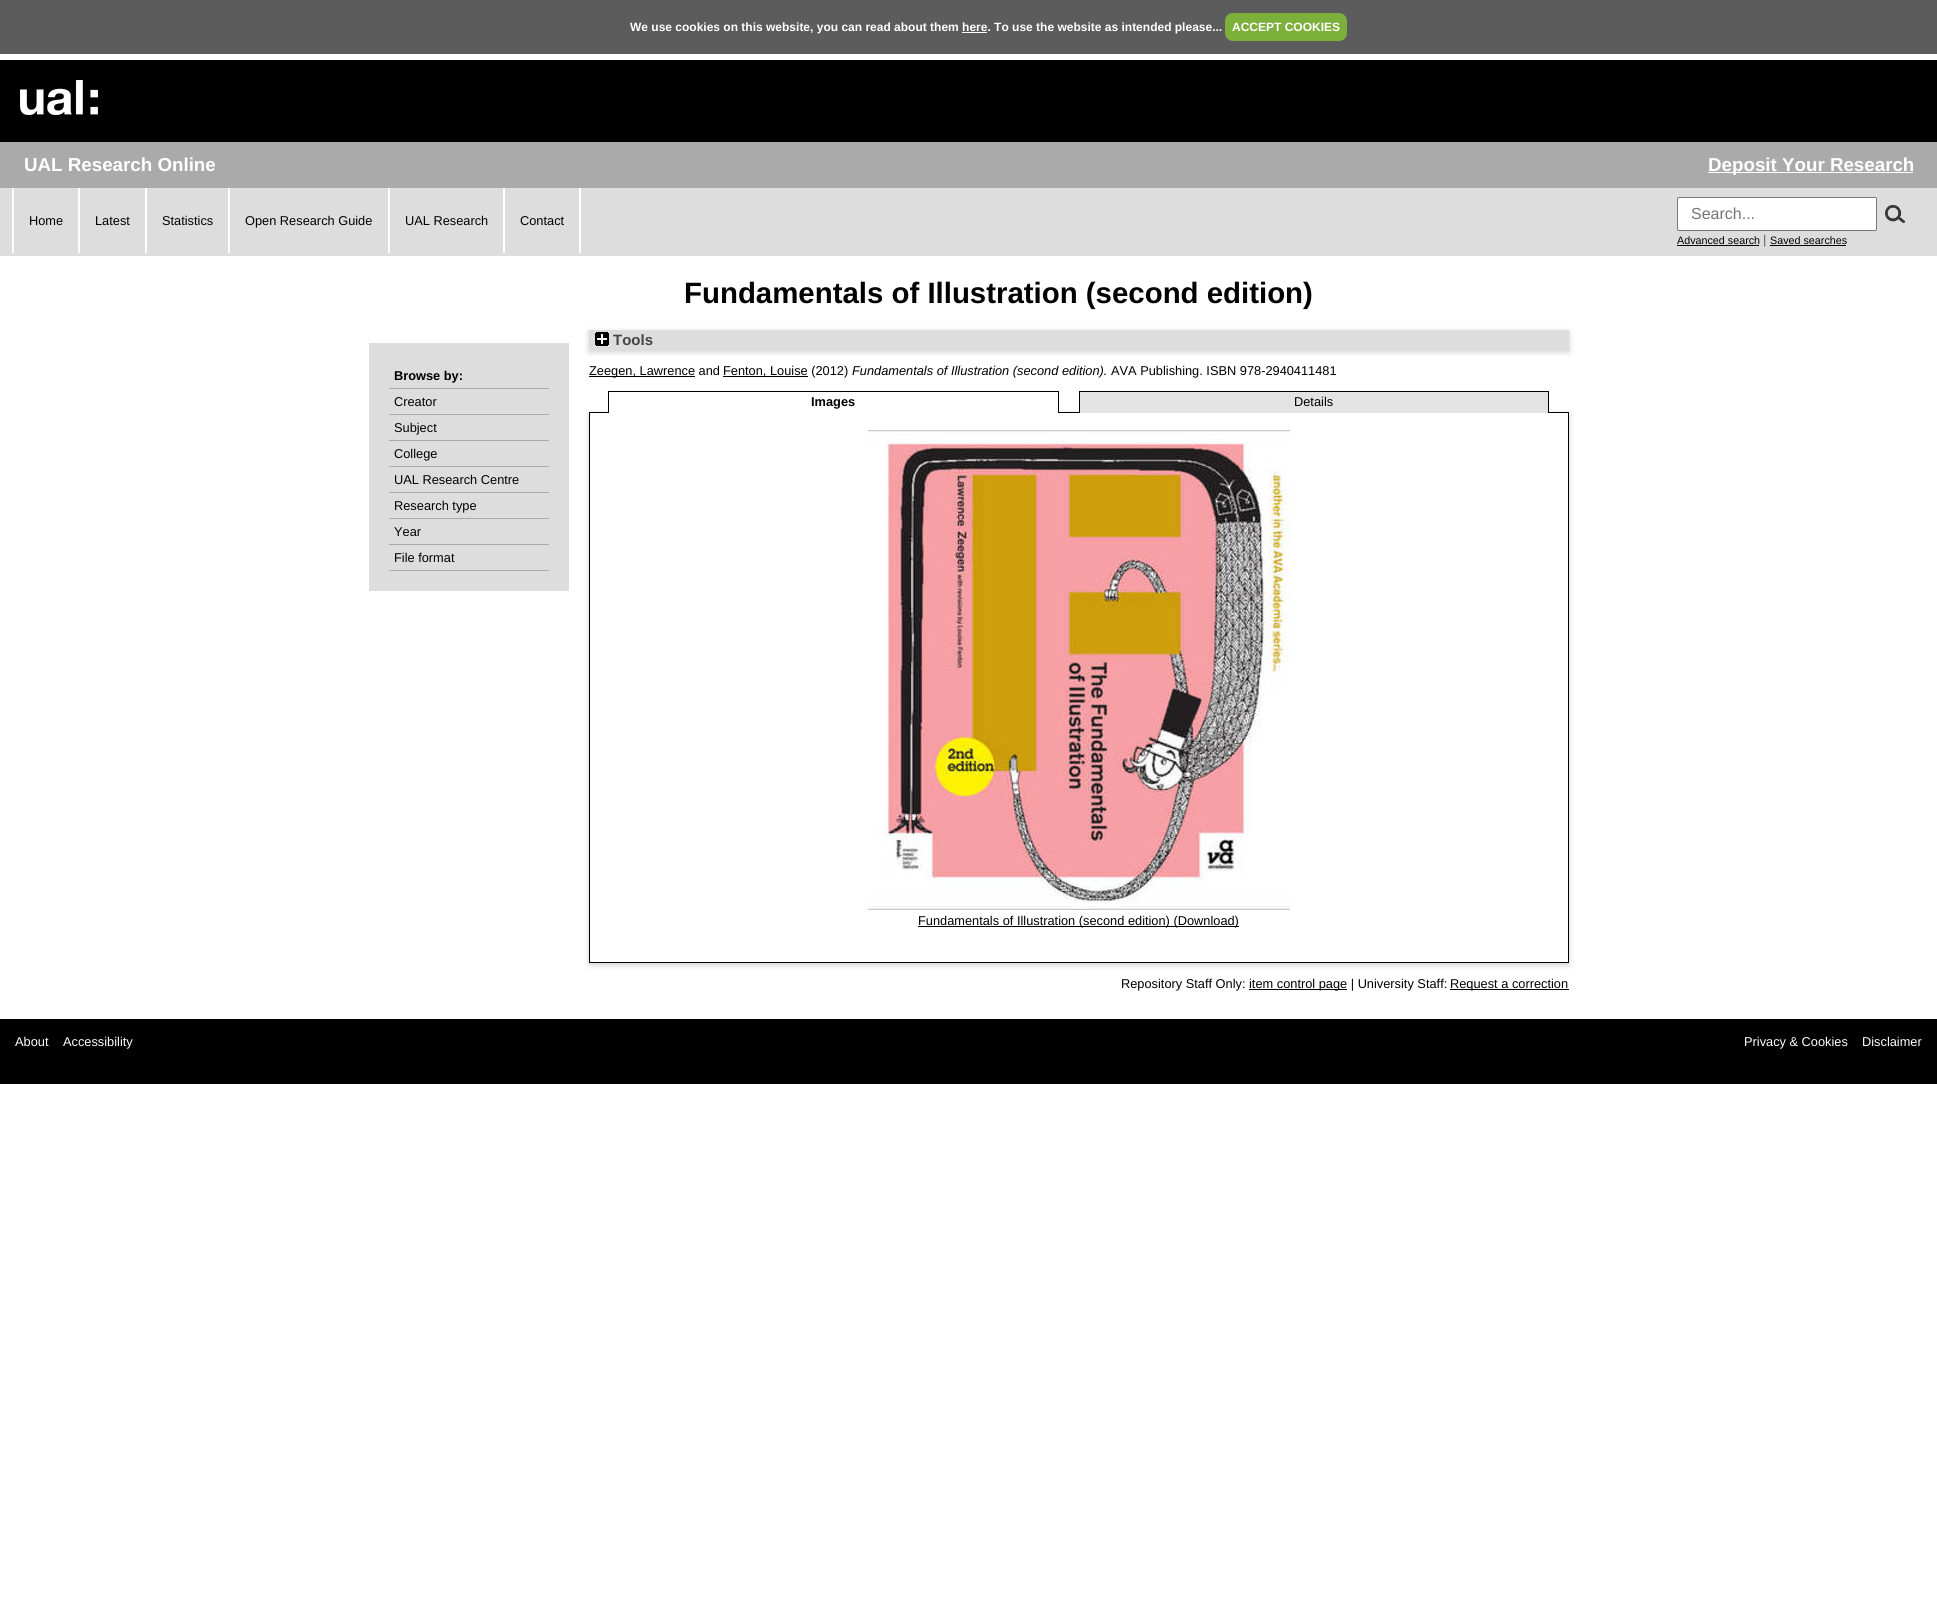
#include <cairo.h>
#include <math.h>
#include <stddef.h>

typedef struct { double x, y; const char *s; } line_t;
typedef struct { double x, y, w, h; unsigned color; } box_t;

static void ink(cairo_t *ctx, unsigned color) {
    cairo_set_source_rgb(ctx, (color >> 16) / 255.0, (color >> 8 & 255) / 255.0, (color & 255) / 255.0);
}

static void round_path(cairo_t *ctx, double x, double y, double w, double h, double r) {
    cairo_new_sub_path(ctx);
    cairo_arc(ctx, x + w - r, y + h - r, r, 0, M_PI / 2);
    cairo_arc(ctx, x + r, y + h - r, r, M_PI / 2, M_PI);
    cairo_arc(ctx, x + r, y + r, r, M_PI, 1.5 * M_PI);
    cairo_arc(ctx, x + w - r, y + r, r, 1.5 * M_PI, 2 * M_PI);
    cairo_close_path(ctx);
}

static void blur_box(cairo_t *ctx, double x, double y, double w, double h, double r, double blur, double alpha) {
    cairo_push_group_with_content(ctx, CAIRO_CONTENT_ALPHA);
    cairo_set_operator(ctx, CAIRO_OPERATOR_SOURCE);
    for (int i = 15; i >= -15 && fmin(w, h) + blur * i / 3 > 0; i -= 2) {
        double e = blur * i / 6;
        cairo_set_source_rgba(ctx, 0, 0, 0, alpha * erfc((i - 1) / 8.5) / 2);
        round_path(ctx, x - e, y - e, w + 2 * e, h + 2 * e, fmax(0, fmin(r + e + blur * .6, fmin(w, h) / 2 + e)));
        cairo_fill(ctx);
    }
    cairo_pattern_t *soft = cairo_pop_group(ctx);
    cairo_mask(ctx, soft);
    cairo_pattern_destroy(soft);
}

static void paste(cairo_t *ctx, const char *path, double x, double y, double w, double h) {
    cairo_surface_t *image = cairo_image_surface_create_from_png(path);
    cairo_save(ctx);
    cairo_set_source_surface(ctx, image, x, y);
    cairo_rectangle(ctx, x, y, w, h);
    cairo_fill(ctx);
    cairo_restore(ctx);
    cairo_surface_destroy(image);
}

int main(void) {
    cairo_surface_t *surface = cairo_image_surface_create(CAIRO_FORMAT_RGB24, 1937, 1615);
    cairo_t *ctx = cairo_create(surface);
    cairo_font_options_t *options = cairo_font_options_create();
    cairo_font_options_set_hint_metrics(options, CAIRO_HINT_METRICS_OFF);
    cairo_font_options_set_hint_style(options, CAIRO_HINT_STYLE_NONE);
    cairo_set_font_options(ctx, options);
    cairo_set_miter_limit(ctx, 4);
    ink(ctx, 0xFFFFFF);
    cairo_paint(ctx);
    ink(ctx, 0x5C5C5C);
    cairo_rectangle(ctx, 0, 0, 1937, 54);
    cairo_fill(ctx);
    cairo_select_font_face(ctx, "Liberation Sans", CAIRO_FONT_SLANT_NORMAL, CAIRO_FONT_WEIGHT_BOLD);
    cairo_set_font_size(ctx, 12);
    ink(ctx, 0xFFFFFF);
    cairo_move_to(ctx, 630, 31);
    cairo_show_text(ctx, "We use cookies on this website, you can read about them here. To use the website as intended please...");
    ink(ctx, 0x7DAF3B);
    round_path(ctx, 1225, 13, 122, 28, 8);
    cairo_fill(ctx);
    ink(ctx, 0xFFFFFF);
    cairo_move_to(ctx, 1232, 31);
    cairo_show_text(ctx, "ACCEPT COOKIES");
    cairo_rectangle(ctx, 962, 32, 25, 1);
    cairo_fill(ctx);
    ink(ctx, 0x000000);
    cairo_rectangle(ctx, 0, 60, 1937, 82);
    cairo_fill(ctx);
    paste(ctx, "media/1.png", 20, 80, 78, 35);
    ink(ctx, 0xAAAAAA);
    cairo_rectangle(ctx, 0, 142, 1937, 46);
    cairo_fill(ctx);
    cairo_set_font_size(ctx, 18.75);
    ink(ctx, 0xFFFFFF);
    cairo_move_to(ctx, 24, 171);
    cairo_show_text(ctx, "UAL Research Online");
    cairo_rectangle(ctx, 1708, 172, 205, 1);
    cairo_fill(ctx);
    cairo_move_to(ctx, 1708, 171);
    cairo_show_text(ctx, "Deposit Your Research");
    ink(ctx, 0xDDDDDD);
    cairo_rectangle(ctx, 0, 188, 1937, 68);
    cairo_fill(ctx);
    ink(ctx, 0xFFFFFF);
    cairo_rectangle(ctx, 12, 188, 2, 65);
    cairo_fill(ctx);
    cairo_select_font_face(ctx, "Liberation Sans", CAIRO_FONT_SLANT_NORMAL, CAIRO_FONT_WEIGHT_NORMAL);
    cairo_set_font_size(ctx, 12.8);
    ink(ctx, 0x000000);
    cairo_move_to(ctx, 29, 225);
    cairo_show_text(ctx, "Home");
    ink(ctx, 0xFFFFFF);
    cairo_rectangle(ctx, 78, 188, 2, 65);
    cairo_fill(ctx);
    ink(ctx, 0x000000);
    cairo_move_to(ctx, 95, 225);
    cairo_show_text(ctx, "Latest");
    ink(ctx, 0xFFFFFF);
    cairo_rectangle(ctx, 145, 188, 2, 65);
    cairo_fill(ctx);
    ink(ctx, 0x000000);
    cairo_move_to(ctx, 162, 225);
    cairo_show_text(ctx, "Statistics");
    ink(ctx, 0xFFFFFF);
    cairo_rectangle(ctx, 228, 188, 2, 65);
    cairo_fill(ctx);
    ink(ctx, 0x000000);
    cairo_move_to(ctx, 245, 225);
    cairo_show_text(ctx, "Open Research Guide");
    ink(ctx, 0xFFFFFF);
    cairo_rectangle(ctx, 388, 188, 2, 65);
    cairo_fill(ctx);
    ink(ctx, 0x000000);
    cairo_move_to(ctx, 405, 225);
    cairo_show_text(ctx, "UAL Research");
    ink(ctx, 0xFFFFFF);
    cairo_rectangle(ctx, 579, 188, 2, 65);
    cairo_fill(ctx);
    cairo_rectangle(ctx, 503, 188, 2, 65);
    cairo_fill(ctx);
    ink(ctx, 0x000000);
    cairo_move_to(ctx, 520, 225);
    cairo_show_text(ctx, "Contact");
    ink(ctx, 0xFFFFFF);
    round_path(ctx, 1677.5, 197.5, 199, 33, 1.5);
    cairo_fill_preserve(ctx);
    ink(ctx, 0x767676);
    cairo_set_line_width(ctx, 1);
    cairo_stroke(ctx);
    cairo_set_font_size(ctx, 16);
    ink(ctx, 0x757575);
    cairo_move_to(ctx, 1691, 219);
    cairo_show_text(ctx, "Search...");
    paste(ctx, "media/2.png", 1885, 205, 20, 18);
    cairo_set_font_size(ctx, 10.75);
    ink(ctx, 0x000000);
    cairo_move_to(ctx, 1677, 244);
    cairo_show_text(ctx, "Advanced search");
    cairo_rectangle(ctx, 1677, 245, 82, 1);
    cairo_fill(ctx);
    cairo_set_font_size(ctx, 12.8);
    ink(ctx, 0x606060);
    cairo_move_to(ctx, 1763, 244);
    cairo_show_text(ctx, "|");
    cairo_set_font_size(ctx, 10.75);
    ink(ctx, 0x000000);
    cairo_move_to(ctx, 1770, 244);
    cairo_show_text(ctx, "Saved searches");
    cairo_rectangle(ctx, 1770, 245, 76, 1);
    cairo_fill(ctx);
    cairo_select_font_face(ctx, "Liberation Sans", CAIRO_FONT_SLANT_NORMAL, CAIRO_FONT_WEIGHT_BOLD);
    cairo_set_font_size(ctx, 29.4);
    cairo_move_to(ctx, 684, 303);
    cairo_show_text(ctx, "Fundamentals of Illustration (second edition)");
    ink(ctx, 0xDDDDDD);
    cairo_rectangle(ctx, 369, 343, 200, 248);
    cairo_fill(ctx);
    ink(ctx, 0xAAAAAA);
    cairo_rectangle(ctx, 389, 388, 160, 1);
    cairo_fill(ctx);
    cairo_set_font_size(ctx, 12.8);
    ink(ctx, 0x000000);
    cairo_move_to(ctx, 394, 380);
    cairo_show_text(ctx, "Browse by:");
    ink(ctx, 0xAAAAAA);
    cairo_rectangle(ctx, 389, 414, 160, 1);
    cairo_fill(ctx);
    cairo_select_font_face(ctx, "Liberation Sans", CAIRO_FONT_SLANT_NORMAL, CAIRO_FONT_WEIGHT_NORMAL);
    ink(ctx, 0x000000);
    cairo_move_to(ctx, 394, 406);
    cairo_show_text(ctx, "Creator");
    ink(ctx, 0xAAAAAA);
    cairo_rectangle(ctx, 389, 440, 160, 1);
    cairo_fill(ctx);
    ink(ctx, 0x000000);
    cairo_move_to(ctx, 394, 432);
    cairo_show_text(ctx, "Subject");
    ink(ctx, 0xAAAAAA);
    cairo_rectangle(ctx, 389, 466, 160, 1);
    cairo_fill(ctx);
    ink(ctx, 0x000000);
    cairo_move_to(ctx, 394, 458);
    cairo_show_text(ctx, "College");
    ink(ctx, 0xAAAAAA);
    cairo_rectangle(ctx, 389, 492, 160, 1);
    cairo_fill(ctx);
    ink(ctx, 0x000000);
    cairo_move_to(ctx, 394, 484);
    cairo_show_text(ctx, "UAL Research Centre");
    ink(ctx, 0xAAAAAA);
    cairo_rectangle(ctx, 389, 518, 160, 1);
    cairo_fill(ctx);
    ink(ctx, 0x000000);
    cairo_move_to(ctx, 394, 510);
    cairo_show_text(ctx, "Research type");
    ink(ctx, 0xAAAAAA);
    cairo_rectangle(ctx, 389, 544, 160, 1);
    cairo_fill(ctx);
    ink(ctx, 0x000000);
    cairo_move_to(ctx, 394, 536);
    cairo_show_text(ctx, "Year");
    ink(ctx, 0xAAAAAA);
    cairo_rectangle(ctx, 389, 570, 160, 1);
    cairo_fill(ctx);
    ink(ctx, 0x000000);
    cairo_move_to(ctx, 394, 562);
    cairo_show_text(ctx, "File format");
    ink(ctx, 0x646464);
    blur_box(ctx, 589, 332, 980, 20, 0, 3, 0.3);
    ink(ctx, 0xDDDDDD);
    cairo_rectangle(ctx, 589, 330, 980, 20);
    cairo_fill(ctx);
    paste(ctx, "media/3.png", 595, 332, 14, 14);
    cairo_select_font_face(ctx, "Liberation Sans", CAIRO_FONT_SLANT_NORMAL, CAIRO_FONT_WEIGHT_BOLD);
    cairo_set_font_size(ctx, 15);
    ink(ctx, 0x444444);
    cairo_move_to(ctx, 613, 345);
    cairo_show_text(ctx, "Tools");
    ink(ctx, 0x000000);
    cairo_rectangle(ctx, 589, 376, 106, 1);
    cairo_fill(ctx);
    cairo_select_font_face(ctx, "Liberation Sans", CAIRO_FONT_SLANT_NORMAL, CAIRO_FONT_WEIGHT_NORMAL);
    cairo_set_font_size(ctx, 12.8);
    cairo_move_to(ctx, 589, 375);
    cairo_show_text(ctx, "Zeegen, Lawrence and");
    cairo_rectangle(ctx, 723, 376, 85, 1);
    cairo_fill(ctx);
    cairo_move_to(ctx, 723, 375);
    cairo_show_text(ctx, "Fenton, Louise (2012)");
    cairo_select_font_face(ctx, "Liberation Sans", CAIRO_FONT_SLANT_ITALIC, CAIRO_FONT_WEIGHT_NORMAL);
    cairo_move_to(ctx, 852, 375);
    cairo_show_text(ctx, "Fundamentals of Illustration (second edition).");
    cairo_select_font_face(ctx, "Liberation Sans", CAIRO_FONT_SLANT_NORMAL, CAIRO_FONT_WEIGHT_NORMAL);
    cairo_move_to(ctx, 1111, 375);
    cairo_show_text(ctx, "AVA Publishing. ISBN 978-2940411481");
    cairo_save(ctx);
    cairo_set_fill_rule(ctx, CAIRO_FILL_RULE_EVEN_ODD);
    cairo_new_path(ctx);
    cairo_move_to(ctx, 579, 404);
    cairo_line_to(ctx, 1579, 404);
    cairo_line_to(ctx, 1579, 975);
    cairo_line_to(ctx, 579, 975);
    cairo_close_path(ctx);
    cairo_move_to(ctx, 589, 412);
    cairo_line_to(ctx, 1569, 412);
    cairo_line_to(ctx, 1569, 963);
    cairo_line_to(ctx, 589, 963);
    cairo_close_path(ctx);
    cairo_clip(ctx);
    ink(ctx, 0x646464);
    blur_box(ctx, 589, 414, 980, 551, 0, 3, 0.3);
    cairo_restore(ctx);
    {
        static const box_t items[] = {
            {1568, 412, 1, 551, 0x000000},
            {589, 962, 980, 1, 0x000000},
            {589, 412, 1, 551, 0x000000},
            {589, 412, 490, 1, 0x000000},
            {609, 409, 449, 4, 0xFFFFFF},
            {608, 391, 451, 1, 0x000000},
            {1058, 391, 1, 22, 0x000000},
            {608, 391, 1, 22, 0x000000},
        };
        for (size_t i = 0; i < sizeof items / sizeof *items; i++) {
            ink(ctx, items[i].color);
            cairo_rectangle(ctx, items[i].x, items[i].y, items[i].w, items[i].h);
            cairo_fill(ctx);
        }
    }
    cairo_select_font_face(ctx, "Liberation Sans", CAIRO_FONT_SLANT_NORMAL, CAIRO_FONT_WEIGHT_BOLD);
    cairo_move_to(ctx, 811, 406);
    cairo_show_text(ctx, "Images");
    {
        static const box_t items[] = {
            {1549, 412, 20, 1, 0x000000},
            {1080, 392, 468, 21, 0xE3E3E3},
            {1079, 391, 470, 1, 0x000000},
            {1548, 391, 1, 22, 0x000000},
            {1079, 391, 1, 22, 0x000000},
        };
        for (size_t i = 0; i < sizeof items / sizeof *items; i++) {
            ink(ctx, items[i].color);
            cairo_rectangle(ctx, items[i].x, items[i].y, items[i].w, items[i].h);
            cairo_fill(ctx);
        }
    }
    cairo_select_font_face(ctx, "Liberation Sans", CAIRO_FONT_SLANT_NORMAL, CAIRO_FONT_WEIGHT_NORMAL);
    cairo_move_to(ctx, 1294, 406);
    cairo_show_text(ctx, "Details");
    paste(ctx, "media/4.png", 868, 430, 422, 480);
    cairo_rectangle(ctx, 918, 926, 321, 1);
    cairo_fill(ctx);
    cairo_move_to(ctx, 918, 925);
    cairo_show_text(ctx, "Fundamentals of Illustration (second edition) (Download)");
    cairo_move_to(ctx, 1121, 988);
    cairo_show_text(ctx, "Repository Staff Only:");
    cairo_rectangle(ctx, 1249, 989, 98, 1);
    cairo_fill(ctx);
    cairo_move_to(ctx, 1249, 988);
    cairo_show_text(ctx, "item control page | University Staff:");
    cairo_rectangle(ctx, 1450, 989, 119, 1);
    cairo_fill(ctx);
    cairo_move_to(ctx, 1450, 988);
    cairo_show_text(ctx, "Request a correction");
    cairo_rectangle(ctx, 0, 1019, 1937, 65);
    cairo_fill(ctx);
    ink(ctx, 0xFFFFFF);
    {
        static const line_t items[] = {
            {15, 1046, "About"},
            {63, 1046, "Accessibility"},
            {1744, 1046, "Privacy & Cookies"},
            {1862, 1046, "Disclaimer"},
        };
        for (size_t i = 0; i < sizeof items / sizeof *items; i++) {
            cairo_move_to(ctx, items[i].x, items[i].y);
            cairo_show_text(ctx, items[i].s);
        }
    }
    cairo_surface_write_to_png(surface, "image.png");
    cairo_font_options_destroy(options);
    cairo_destroy(ctx);
    cairo_surface_destroy(surface);
    return 0;
}
